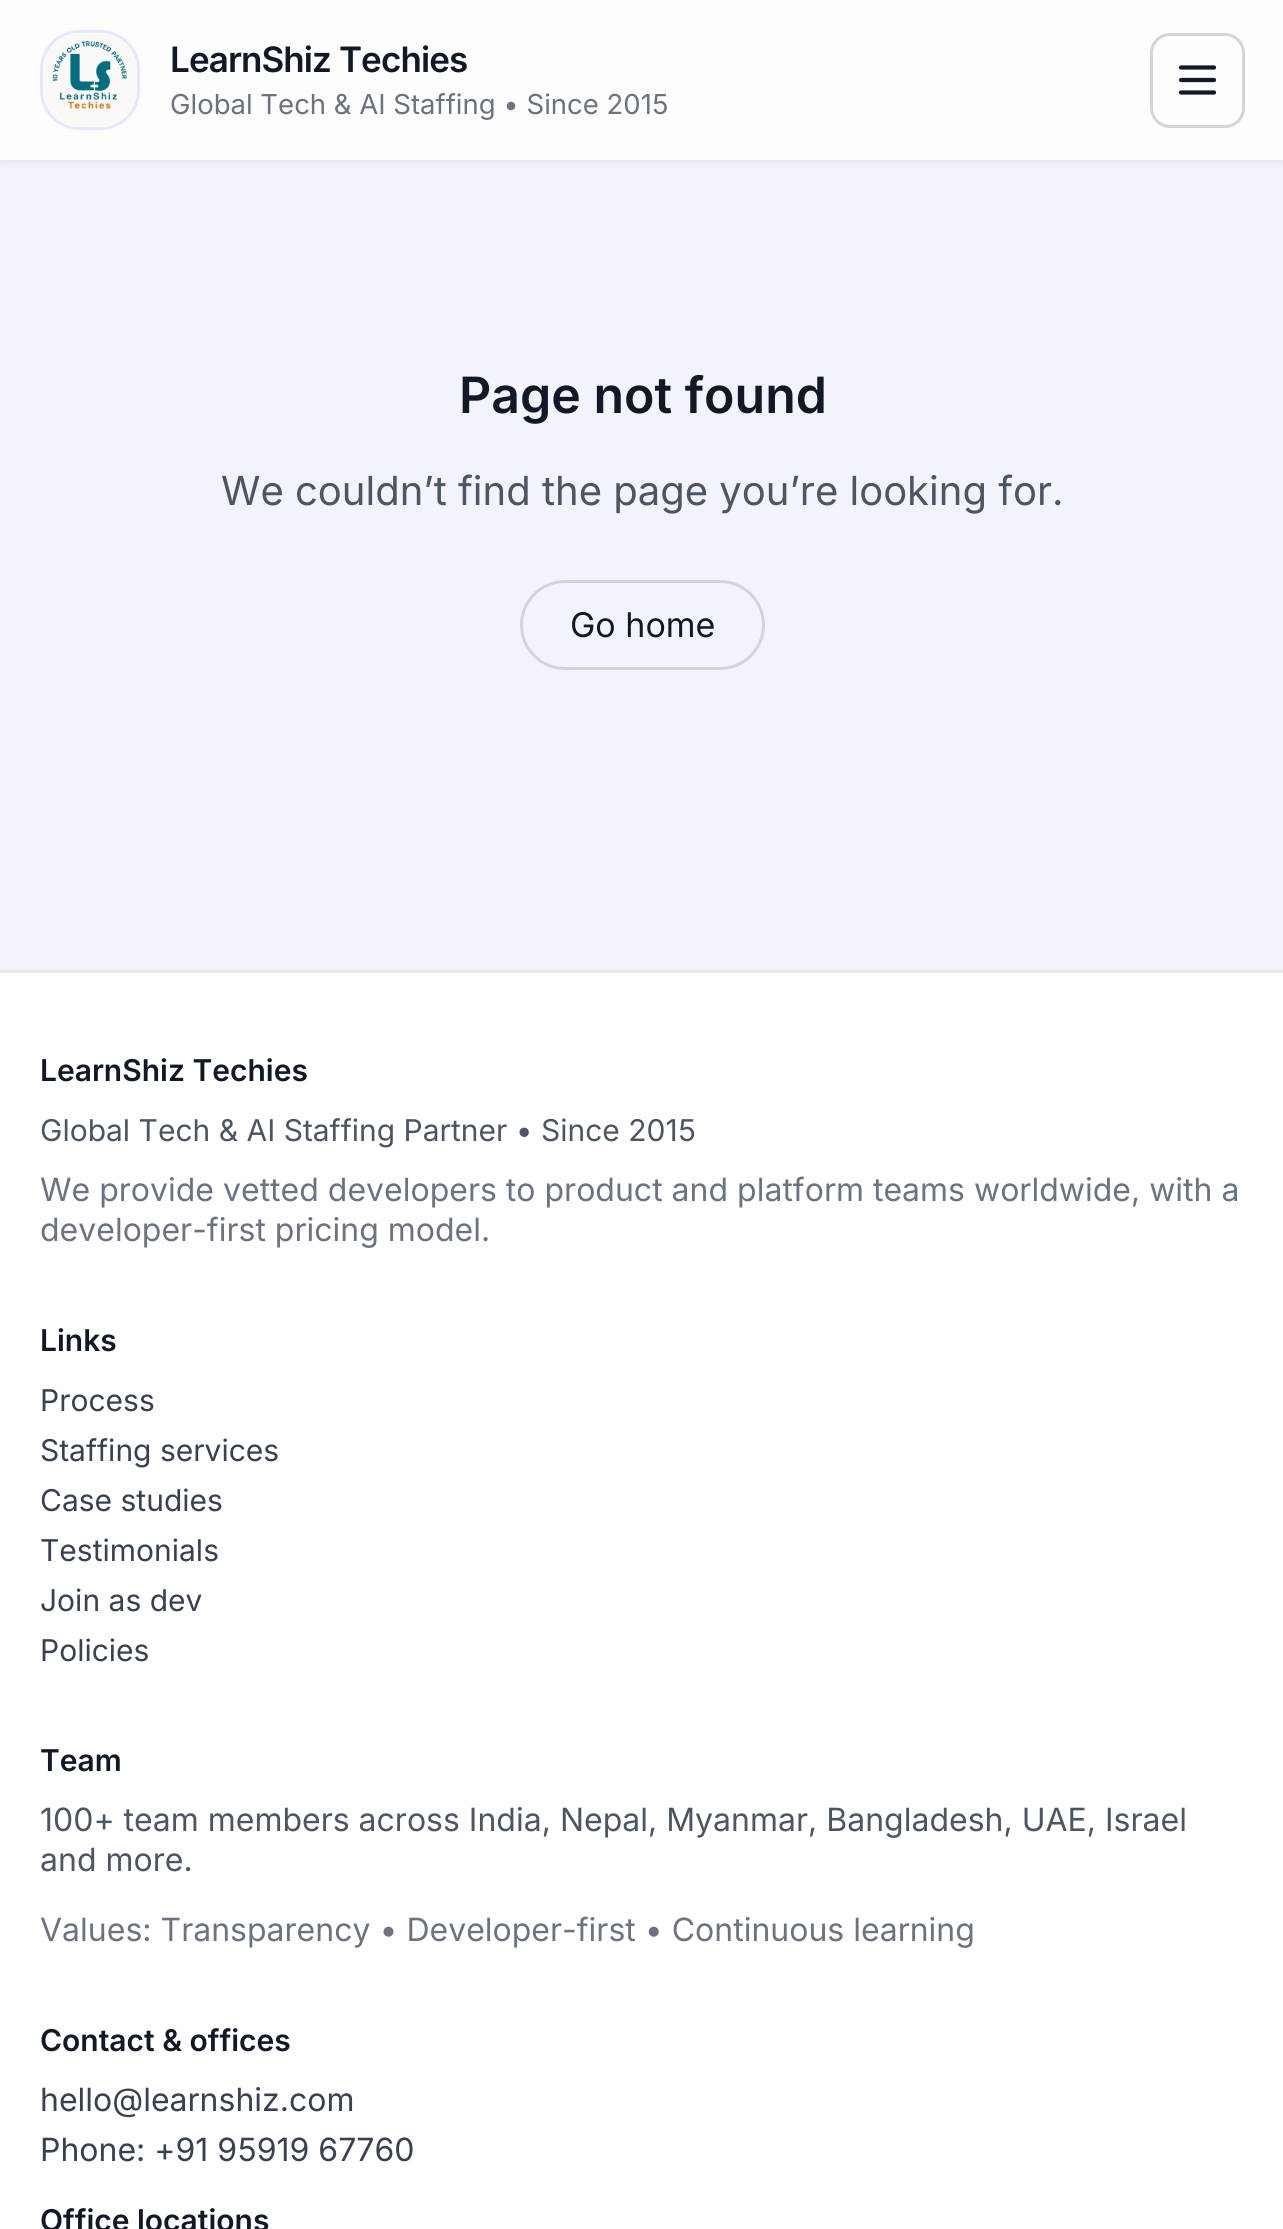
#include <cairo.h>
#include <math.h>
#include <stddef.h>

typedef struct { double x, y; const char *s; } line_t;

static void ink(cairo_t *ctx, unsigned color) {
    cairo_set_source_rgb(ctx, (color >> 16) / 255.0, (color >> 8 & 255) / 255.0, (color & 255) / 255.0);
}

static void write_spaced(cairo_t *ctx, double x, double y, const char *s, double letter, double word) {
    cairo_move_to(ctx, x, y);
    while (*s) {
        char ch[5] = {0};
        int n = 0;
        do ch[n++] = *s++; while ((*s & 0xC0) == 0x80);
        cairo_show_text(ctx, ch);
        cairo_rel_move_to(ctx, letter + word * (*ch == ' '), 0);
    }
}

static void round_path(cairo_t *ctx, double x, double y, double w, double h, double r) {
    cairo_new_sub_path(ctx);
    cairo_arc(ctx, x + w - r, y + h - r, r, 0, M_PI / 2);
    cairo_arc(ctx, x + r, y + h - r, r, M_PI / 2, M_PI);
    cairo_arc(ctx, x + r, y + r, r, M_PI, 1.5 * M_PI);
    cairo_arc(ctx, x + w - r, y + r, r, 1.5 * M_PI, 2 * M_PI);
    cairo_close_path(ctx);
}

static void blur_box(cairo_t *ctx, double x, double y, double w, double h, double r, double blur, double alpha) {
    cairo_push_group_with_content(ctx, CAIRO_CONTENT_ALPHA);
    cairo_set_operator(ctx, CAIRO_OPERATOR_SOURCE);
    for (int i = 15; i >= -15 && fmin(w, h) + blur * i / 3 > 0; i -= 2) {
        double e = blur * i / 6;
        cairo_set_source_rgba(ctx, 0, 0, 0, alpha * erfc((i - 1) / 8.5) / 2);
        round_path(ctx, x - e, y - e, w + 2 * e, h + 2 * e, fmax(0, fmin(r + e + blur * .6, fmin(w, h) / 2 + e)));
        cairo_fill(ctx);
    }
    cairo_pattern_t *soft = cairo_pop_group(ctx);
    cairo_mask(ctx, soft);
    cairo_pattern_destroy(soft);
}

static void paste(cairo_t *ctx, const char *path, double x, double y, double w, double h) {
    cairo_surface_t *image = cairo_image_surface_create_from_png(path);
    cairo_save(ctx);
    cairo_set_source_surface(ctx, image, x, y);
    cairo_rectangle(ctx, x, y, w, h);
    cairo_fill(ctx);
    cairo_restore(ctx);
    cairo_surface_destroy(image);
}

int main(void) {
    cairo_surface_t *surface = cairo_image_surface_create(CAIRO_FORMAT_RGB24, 1283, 2229);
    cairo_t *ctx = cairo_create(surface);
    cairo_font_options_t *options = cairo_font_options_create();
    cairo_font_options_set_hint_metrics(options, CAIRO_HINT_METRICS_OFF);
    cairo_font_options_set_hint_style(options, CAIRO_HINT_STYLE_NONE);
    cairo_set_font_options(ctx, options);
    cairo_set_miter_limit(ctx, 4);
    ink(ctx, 0xF3F4FB);
    cairo_paint(ctx);
    ink(ctx, 0x000000);
    blur_box(ctx, 0, 3, 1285, 160, 0, 2.5, 0.05);
    ink(ctx, 0xFDFDFE);
    cairo_rectangle(ctx, 0, 0, 1283, 160);
    cairo_fill(ctx);
    round_path(ctx, 41.5, 31.5, 97, 97, 38.5);
    ink(ctx, 0xE0E7FF);
    cairo_set_line_width(ctx, 3);
    cairo_stroke(ctx);
    paste(ctx, "media/1.png", 42, 32, 96, 96);
    cairo_select_font_face(ctx, "Inter SemiBold", CAIRO_FONT_SLANT_NORMAL, CAIRO_FONT_WEIGHT_NORMAL);
    cairo_set_font_size(ctx, 35);
    ink(ctx, 0x111827);
    write_spaced(ctx, 170, 72, "LearnShiz Techies", -0.9, 0);
    cairo_select_font_face(ctx, "Inter", CAIRO_FONT_SLANT_NORMAL, CAIRO_FONT_WEIGHT_NORMAL);
    cairo_set_font_size(ctx, 27.5);
    ink(ctx, 0x6B7280);
    cairo_move_to(ctx, 170, 114);
    cairo_show_text(ctx, "Global Tech & AI Staffing • Since 2015");
    round_path(ctx, 1151.5, 34.5, 92, 92, 18.5);
    ink(ctx, 0xD1D5DB);
    cairo_stroke(ctx);
    cairo_new_path(ctx);
    cairo_move_to(ctx, 1181, 67.5);
    cairo_line_to(ctx, 1214, 67.5);
    cairo_move_to(ctx, 1181, 80);
    cairo_line_to(ctx, 1214, 80);
    cairo_move_to(ctx, 1181, 92.5);
    cairo_line_to(ctx, 1214, 92.5);
    ink(ctx, 0x111827);
    cairo_set_line_width(ctx, 4.2);
    cairo_set_line_cap(ctx, CAIRO_LINE_CAP_ROUND);
    cairo_set_line_join(ctx, CAIRO_LINE_JOIN_ROUND);
    cairo_stroke(ctx);
    cairo_select_font_face(ctx, "Inter SemiBold", CAIRO_FONT_SLANT_NORMAL, CAIRO_FONT_WEIGHT_NORMAL);
    cairo_set_font_size(ctx, 50);
    cairo_move_to(ctx, 459, 413);
    cairo_show_text(ctx, "Page not found");
    cairo_select_font_face(ctx, "Inter", CAIRO_FONT_SLANT_NORMAL, CAIRO_FONT_WEIGHT_NORMAL);
    cairo_set_font_size(ctx, 40);
    ink(ctx, 0x4B5563);
    cairo_move_to(ctx, 221, 505);
    cairo_show_text(ctx, "We couldn’t find the page you’re looking for.");
    round_path(ctx, 521.5, 581.5, 242, 87, 43.5);
    ink(ctx, 0xD1D5DB);
    cairo_set_line_width(ctx, 3);
    cairo_set_line_cap(ctx, CAIRO_LINE_CAP_BUTT);
    cairo_set_line_join(ctx, CAIRO_LINE_JOIN_MITER);
    cairo_stroke(ctx);
    cairo_set_font_size(ctx, 34);
    ink(ctx, 0x111827);
    cairo_move_to(ctx, 570, 637);
    cairo_show_text(ctx, "Go home");
    ink(ctx, 0xFFFFFF);
    cairo_rectangle(ctx, 0, 973, 1283, 1256);
    cairo_fill(ctx);
    ink(ctx, 0xE5E7EB);
    cairo_rectangle(ctx, 0, 970, 1283, 3);
    cairo_fill(ctx);
    cairo_select_font_face(ctx, "Inter SemiBold", CAIRO_FONT_SLANT_NORMAL, CAIRO_FONT_WEIGHT_NORMAL);
    cairo_set_font_size(ctx, 30);
    ink(ctx, 0x111827);
    cairo_move_to(ctx, 40, 1081);
    cairo_show_text(ctx, "LearnShiz Techies");
    cairo_select_font_face(ctx, "Inter", CAIRO_FONT_SLANT_NORMAL, CAIRO_FONT_WEIGHT_NORMAL);
    ink(ctx, 0x4B5563);
    cairo_move_to(ctx, 40, 1141);
    cairo_show_text(ctx, "Global Tech & AI Staffing Partner • Since 2015");
    cairo_set_font_size(ctx, 32);
    ink(ctx, 0x6B7280);
    cairo_move_to(ctx, 40, 1201);
    cairo_show_text(ctx, "We provide vetted developers to product and platform teams worldwide, with a");
    cairo_move_to(ctx, 40, 1241);
    cairo_show_text(ctx, "developer-first pricing model.");
    cairo_select_font_face(ctx, "Inter SemiBold", CAIRO_FONT_SLANT_NORMAL, CAIRO_FONT_WEIGHT_NORMAL);
    cairo_set_font_size(ctx, 30);
    ink(ctx, 0x111827);
    cairo_move_to(ctx, 40, 1351);
    cairo_show_text(ctx, "Links");
    cairo_select_font_face(ctx, "Inter", CAIRO_FONT_SLANT_NORMAL, CAIRO_FONT_WEIGHT_NORMAL);
    ink(ctx, 0x374151);
    {
        static const line_t items[] = {
            {40, 1411, "Process"},
            {40, 1461, "Staffing services"},
            {40, 1511, "Case studies"},
            {40, 1561, "Testimonials"},
            {40, 1611, "Join as dev"},
            {40, 1661, "Policies"},
        };
        for (size_t i = 0; i < sizeof items / sizeof *items; i++) {
            cairo_move_to(ctx, items[i].x, items[i].y);
            cairo_show_text(ctx, items[i].s);
        }
    }
    cairo_select_font_face(ctx, "Inter SemiBold", CAIRO_FONT_SLANT_NORMAL, CAIRO_FONT_WEIGHT_NORMAL);
    ink(ctx, 0x111827);
    cairo_move_to(ctx, 40, 1771);
    cairo_show_text(ctx, "Team");
    cairo_select_font_face(ctx, "Inter", CAIRO_FONT_SLANT_NORMAL, CAIRO_FONT_WEIGHT_NORMAL);
    cairo_set_font_size(ctx, 32);
    ink(ctx, 0x4B5563);
    cairo_move_to(ctx, 40, 1831);
    cairo_show_text(ctx, "100+ team members across India, Nepal, Myanmar, Bangladesh, UAE, Israel");
    cairo_move_to(ctx, 40, 1871);
    cairo_show_text(ctx, "and more.");
    ink(ctx, 0x6B7280);
    cairo_move_to(ctx, 40, 1941);
    cairo_show_text(ctx, "Values: Transparency • Developer-first • Continuous learning");
    cairo_select_font_face(ctx, "Inter SemiBold", CAIRO_FONT_SLANT_NORMAL, CAIRO_FONT_WEIGHT_NORMAL);
    cairo_set_font_size(ctx, 30);
    ink(ctx, 0x111827);
    cairo_move_to(ctx, 40, 2051);
    cairo_show_text(ctx, "Contact & offices");
    cairo_select_font_face(ctx, "Inter", CAIRO_FONT_SLANT_NORMAL, CAIRO_FONT_WEIGHT_NORMAL);
    cairo_set_font_size(ctx, 32);
    ink(ctx, 0x374151);
    cairo_move_to(ctx, 40, 2111);
    cairo_show_text(ctx, "hello@learnshiz.com");
    cairo_move_to(ctx, 40, 2161);
    cairo_show_text(ctx, "Phone: +91 95919 67760");
    cairo_select_font_face(ctx, "Inter SemiBold", CAIRO_FONT_SLANT_NORMAL, CAIRO_FONT_WEIGHT_NORMAL);
    cairo_set_font_size(ctx, 30);
    ink(ctx, 0x111827);
    cairo_move_to(ctx, 40, 2231);
    cairo_show_text(ctx, "Office locations");
    cairo_surface_write_to_png(surface, "image.png");
    cairo_font_options_destroy(options);
    cairo_destroy(ctx);
    cairo_surface_destroy(surface);
    return 0;
}
